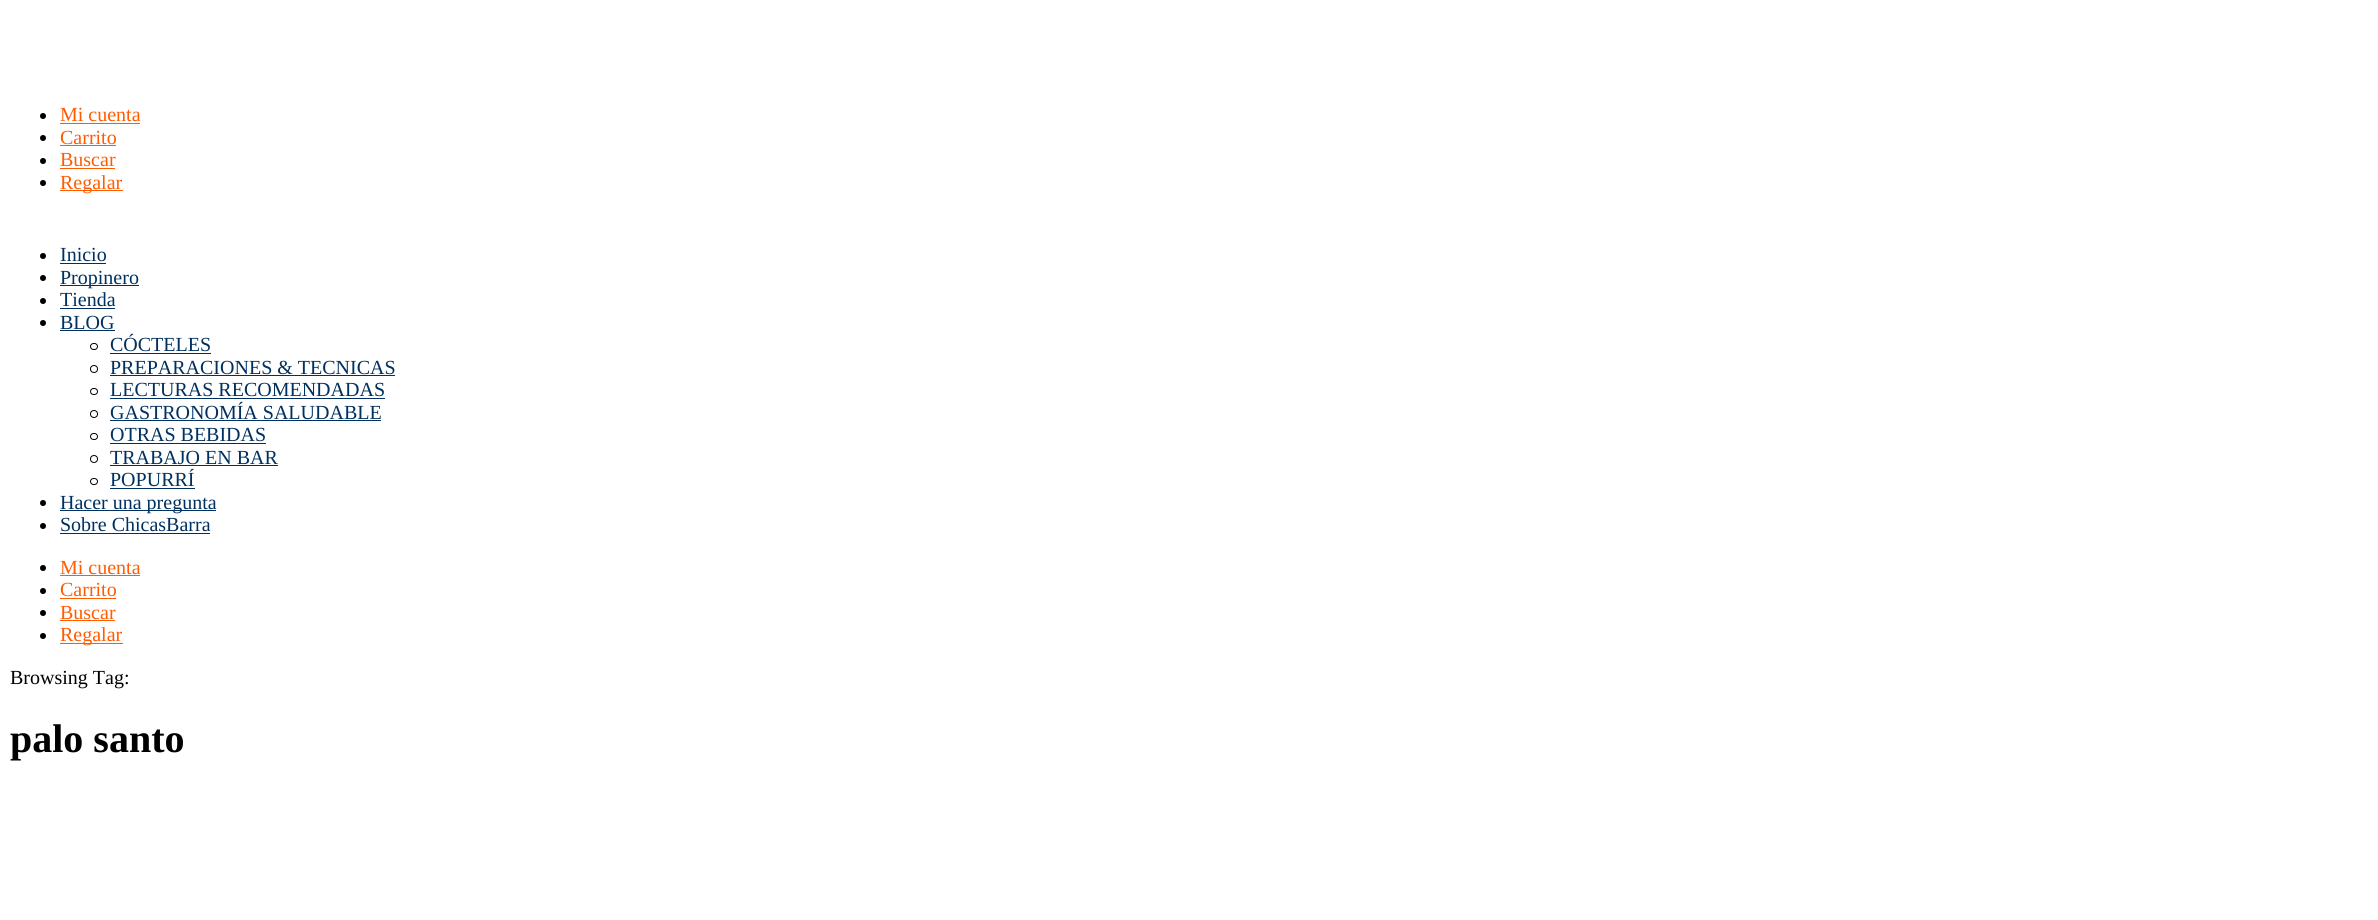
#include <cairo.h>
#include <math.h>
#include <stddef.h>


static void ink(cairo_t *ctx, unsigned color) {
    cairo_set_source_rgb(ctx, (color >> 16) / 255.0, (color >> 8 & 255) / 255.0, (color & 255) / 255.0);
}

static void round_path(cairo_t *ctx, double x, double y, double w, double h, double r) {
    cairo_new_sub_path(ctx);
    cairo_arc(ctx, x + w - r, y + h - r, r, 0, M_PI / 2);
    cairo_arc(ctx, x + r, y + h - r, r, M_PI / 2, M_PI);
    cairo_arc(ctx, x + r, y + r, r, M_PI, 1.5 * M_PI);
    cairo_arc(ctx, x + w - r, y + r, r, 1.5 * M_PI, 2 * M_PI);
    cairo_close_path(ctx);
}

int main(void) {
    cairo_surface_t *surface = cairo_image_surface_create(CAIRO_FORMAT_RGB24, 2378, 920);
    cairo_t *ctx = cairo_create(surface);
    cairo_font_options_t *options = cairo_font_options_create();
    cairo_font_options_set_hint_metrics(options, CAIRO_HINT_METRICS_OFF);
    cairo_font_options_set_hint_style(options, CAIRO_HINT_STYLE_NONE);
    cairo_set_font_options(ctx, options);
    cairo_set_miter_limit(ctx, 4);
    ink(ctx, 0xFFFFFF);
    cairo_paint(ctx);
    ink(ctx, 0x000000);
    cairo_arc(ctx, 43, 116, 3, 0, 2 * M_PI);
    cairo_fill(ctx);
    cairo_select_font_face(ctx, "Liberation Serif", CAIRO_FONT_SLANT_NORMAL, CAIRO_FONT_WEIGHT_NORMAL);
    cairo_set_font_size(ctx, 20);
    ink(ctx, 0xFF5C00);
    cairo_move_to(ctx, 60, 121);
    cairo_show_text(ctx, "Mi cuenta");
    cairo_rectangle(ctx, 60, 123, 80, 1);
    cairo_fill(ctx);
    ink(ctx, 0x000000);
    cairo_arc(ctx, 43, 138, 3, 0, 2 * M_PI);
    cairo_fill(ctx);
    ink(ctx, 0xFF5C00);
    cairo_move_to(ctx, 60, 144);
    cairo_show_text(ctx, "Carrito");
    cairo_rectangle(ctx, 60, 145, 56, 1);
    cairo_fill(ctx);
    ink(ctx, 0x000000);
    cairo_arc(ctx, 43, 161, 3, 0, 2 * M_PI);
    cairo_fill(ctx);
    ink(ctx, 0xFF5C00);
    cairo_move_to(ctx, 60, 166);
    cairo_show_text(ctx, "Buscar");
    cairo_rectangle(ctx, 60, 168, 55, 1);
    cairo_fill(ctx);
    ink(ctx, 0x000000);
    cairo_arc(ctx, 43, 183, 3, 0, 2 * M_PI);
    cairo_fill(ctx);
    ink(ctx, 0xFF5C00);
    cairo_rectangle(ctx, 60, 190, 63, 1);
    cairo_fill(ctx);
    cairo_move_to(ctx, 60, 189);
    cairo_show_text(ctx, "Regalar");
    ink(ctx, 0x000000);
    cairo_new_path(ctx);
    cairo_arc(ctx, 43, 256, 3, 0, 2 * M_PI);
    cairo_fill(ctx);
    ink(ctx, 0x003060);
    cairo_move_to(ctx, 60, 261);
    cairo_show_text(ctx, "Inicio");
    cairo_rectangle(ctx, 60, 263, 46, 1);
    cairo_fill(ctx);
    ink(ctx, 0x000000);
    cairo_arc(ctx, 43, 278, 3, 0, 2 * M_PI);
    cairo_fill(ctx);
    ink(ctx, 0x003060);
    cairo_rectangle(ctx, 60, 285, 79, 1);
    cairo_fill(ctx);
    cairo_move_to(ctx, 60, 284);
    cairo_show_text(ctx, "Propinero");
    ink(ctx, 0x000000);
    cairo_new_path(ctx);
    cairo_arc(ctx, 43, 301, 3, 0, 2 * M_PI);
    cairo_fill(ctx);
    ink(ctx, 0x003060);
    cairo_move_to(ctx, 60, 306);
    cairo_show_text(ctx, "Tienda");
    cairo_rectangle(ctx, 60, 308, 55, 1);
    cairo_fill(ctx);
    ink(ctx, 0x000000);
    cairo_arc(ctx, 43, 323, 3, 0, 2 * M_PI);
    cairo_fill(ctx);
    ink(ctx, 0x003060);
    cairo_move_to(ctx, 60, 329);
    cairo_show_text(ctx, "BLOG");
    cairo_rectangle(ctx, 60, 330, 55, 1);
    cairo_fill(ctx);
    round_path(ctx, 90.5, 343.5, 7, 6, 3);
    ink(ctx, 0x000000);
    cairo_set_line_width(ctx, 1);
    cairo_stroke(ctx);
    ink(ctx, 0x003060);
    cairo_move_to(ctx, 110, 351);
    cairo_show_text(ctx, "CÓCTELES");
    cairo_rectangle(ctx, 110, 353, 101, 1);
    cairo_fill(ctx);
    cairo_arc(ctx, 94, 369, 3.5, 0, 2 * M_PI);
    ink(ctx, 0x000000);
    cairo_stroke(ctx);
    ink(ctx, 0x003060);
    cairo_move_to(ctx, 110, 374);
    cairo_show_text(ctx, "PREPARACIONES & TECNICAS");
    cairo_rectangle(ctx, 110, 375, 285, 1);
    cairo_fill(ctx);
    round_path(ctx, 90.5, 388.5, 7, 6, 3);
    ink(ctx, 0x000000);
    cairo_stroke(ctx);
    ink(ctx, 0x003060);
    cairo_move_to(ctx, 110, 396);
    cairo_show_text(ctx, "LECTURAS RECOMENDADAS");
    cairo_rectangle(ctx, 110, 398, 275, 1);
    cairo_fill(ctx);
    cairo_arc(ctx, 94, 414, 3.5, 0, 2 * M_PI);
    ink(ctx, 0x000000);
    cairo_stroke(ctx);
    ink(ctx, 0x003060);
    cairo_move_to(ctx, 110, 419);
    cairo_show_text(ctx, "GASTRONOMÍA SALUDABLE");
    cairo_rectangle(ctx, 110, 420, 271, 1);
    cairo_fill(ctx);
    round_path(ctx, 90.5, 433.5, 7, 6, 3);
    ink(ctx, 0x000000);
    cairo_stroke(ctx);
    ink(ctx, 0x003060);
    cairo_move_to(ctx, 110, 441);
    cairo_show_text(ctx, "OTRAS BEBIDAS");
    cairo_rectangle(ctx, 110, 443, 156, 1);
    cairo_fill(ctx);
    cairo_arc(ctx, 94, 459, 3.5, 0, 2 * M_PI);
    ink(ctx, 0x000000);
    cairo_stroke(ctx);
    ink(ctx, 0x003060);
    cairo_move_to(ctx, 110, 464);
    cairo_show_text(ctx, "TRABAJO EN BAR");
    cairo_rectangle(ctx, 110, 465, 168, 1);
    cairo_fill(ctx);
    round_path(ctx, 90.5, 478.5, 7, 6, 3);
    ink(ctx, 0x000000);
    cairo_stroke(ctx);
    ink(ctx, 0x003060);
    cairo_move_to(ctx, 110, 486);
    cairo_show_text(ctx, "POPURRÍ");
    cairo_rectangle(ctx, 110, 488, 85, 1);
    cairo_fill(ctx);
    ink(ctx, 0x000000);
    cairo_arc(ctx, 43, 503, 3, 0, 2 * M_PI);
    cairo_fill(ctx);
    ink(ctx, 0x003060);
    cairo_rectangle(ctx, 60, 510, 156, 1);
    cairo_fill(ctx);
    cairo_move_to(ctx, 60, 509);
    cairo_show_text(ctx, "Hacer una pregunta");
    ink(ctx, 0x000000);
    cairo_new_path(ctx);
    cairo_arc(ctx, 43, 526, 3, 0, 2 * M_PI);
    cairo_fill(ctx);
    ink(ctx, 0x003060);
    cairo_move_to(ctx, 60, 531);
    cairo_show_text(ctx, "Sobre ChicasBarra");
    cairo_rectangle(ctx, 60, 533, 150, 1);
    cairo_fill(ctx);
    ink(ctx, 0x000000);
    cairo_arc(ctx, 43, 568, 3, 0, 2 * M_PI);
    cairo_fill(ctx);
    ink(ctx, 0xFF5C00);
    cairo_move_to(ctx, 60, 574);
    cairo_show_text(ctx, "Mi cuenta");
    cairo_rectangle(ctx, 60, 575, 80, 1);
    cairo_fill(ctx);
    ink(ctx, 0x000000);
    cairo_arc(ctx, 43, 591, 3, 0, 2 * M_PI);
    cairo_fill(ctx);
    ink(ctx, 0xFF5C00);
    cairo_move_to(ctx, 60, 596);
    cairo_show_text(ctx, "Carrito");
    cairo_rectangle(ctx, 60, 598, 56, 1);
    cairo_fill(ctx);
    ink(ctx, 0x000000);
    cairo_arc(ctx, 43, 613, 3, 0, 2 * M_PI);
    cairo_fill(ctx);
    ink(ctx, 0xFF5C00);
    cairo_move_to(ctx, 60, 619);
    cairo_show_text(ctx, "Buscar");
    cairo_rectangle(ctx, 60, 620, 55, 1);
    cairo_fill(ctx);
    ink(ctx, 0x000000);
    cairo_arc(ctx, 43, 636, 3, 0, 2 * M_PI);
    cairo_fill(ctx);
    ink(ctx, 0xFF5C00);
    cairo_rectangle(ctx, 60, 643, 63, 1);
    cairo_fill(ctx);
    cairo_move_to(ctx, 60, 641);
    cairo_show_text(ctx, "Regalar");
    ink(ctx, 0x000000);
    cairo_move_to(ctx, 10, 684);
    cairo_show_text(ctx, "Browsing Tag:");
    cairo_select_font_face(ctx, "Liberation Serif", CAIRO_FONT_SLANT_NORMAL, CAIRO_FONT_WEIGHT_BOLD);
    cairo_set_font_size(ctx, 40);
    cairo_move_to(ctx, 10, 752);
    cairo_show_text(ctx, "palo santo");
    cairo_surface_write_to_png(surface, "image.png");
    cairo_font_options_destroy(options);
    cairo_destroy(ctx);
    cairo_surface_destroy(surface);
    return 0;
}
